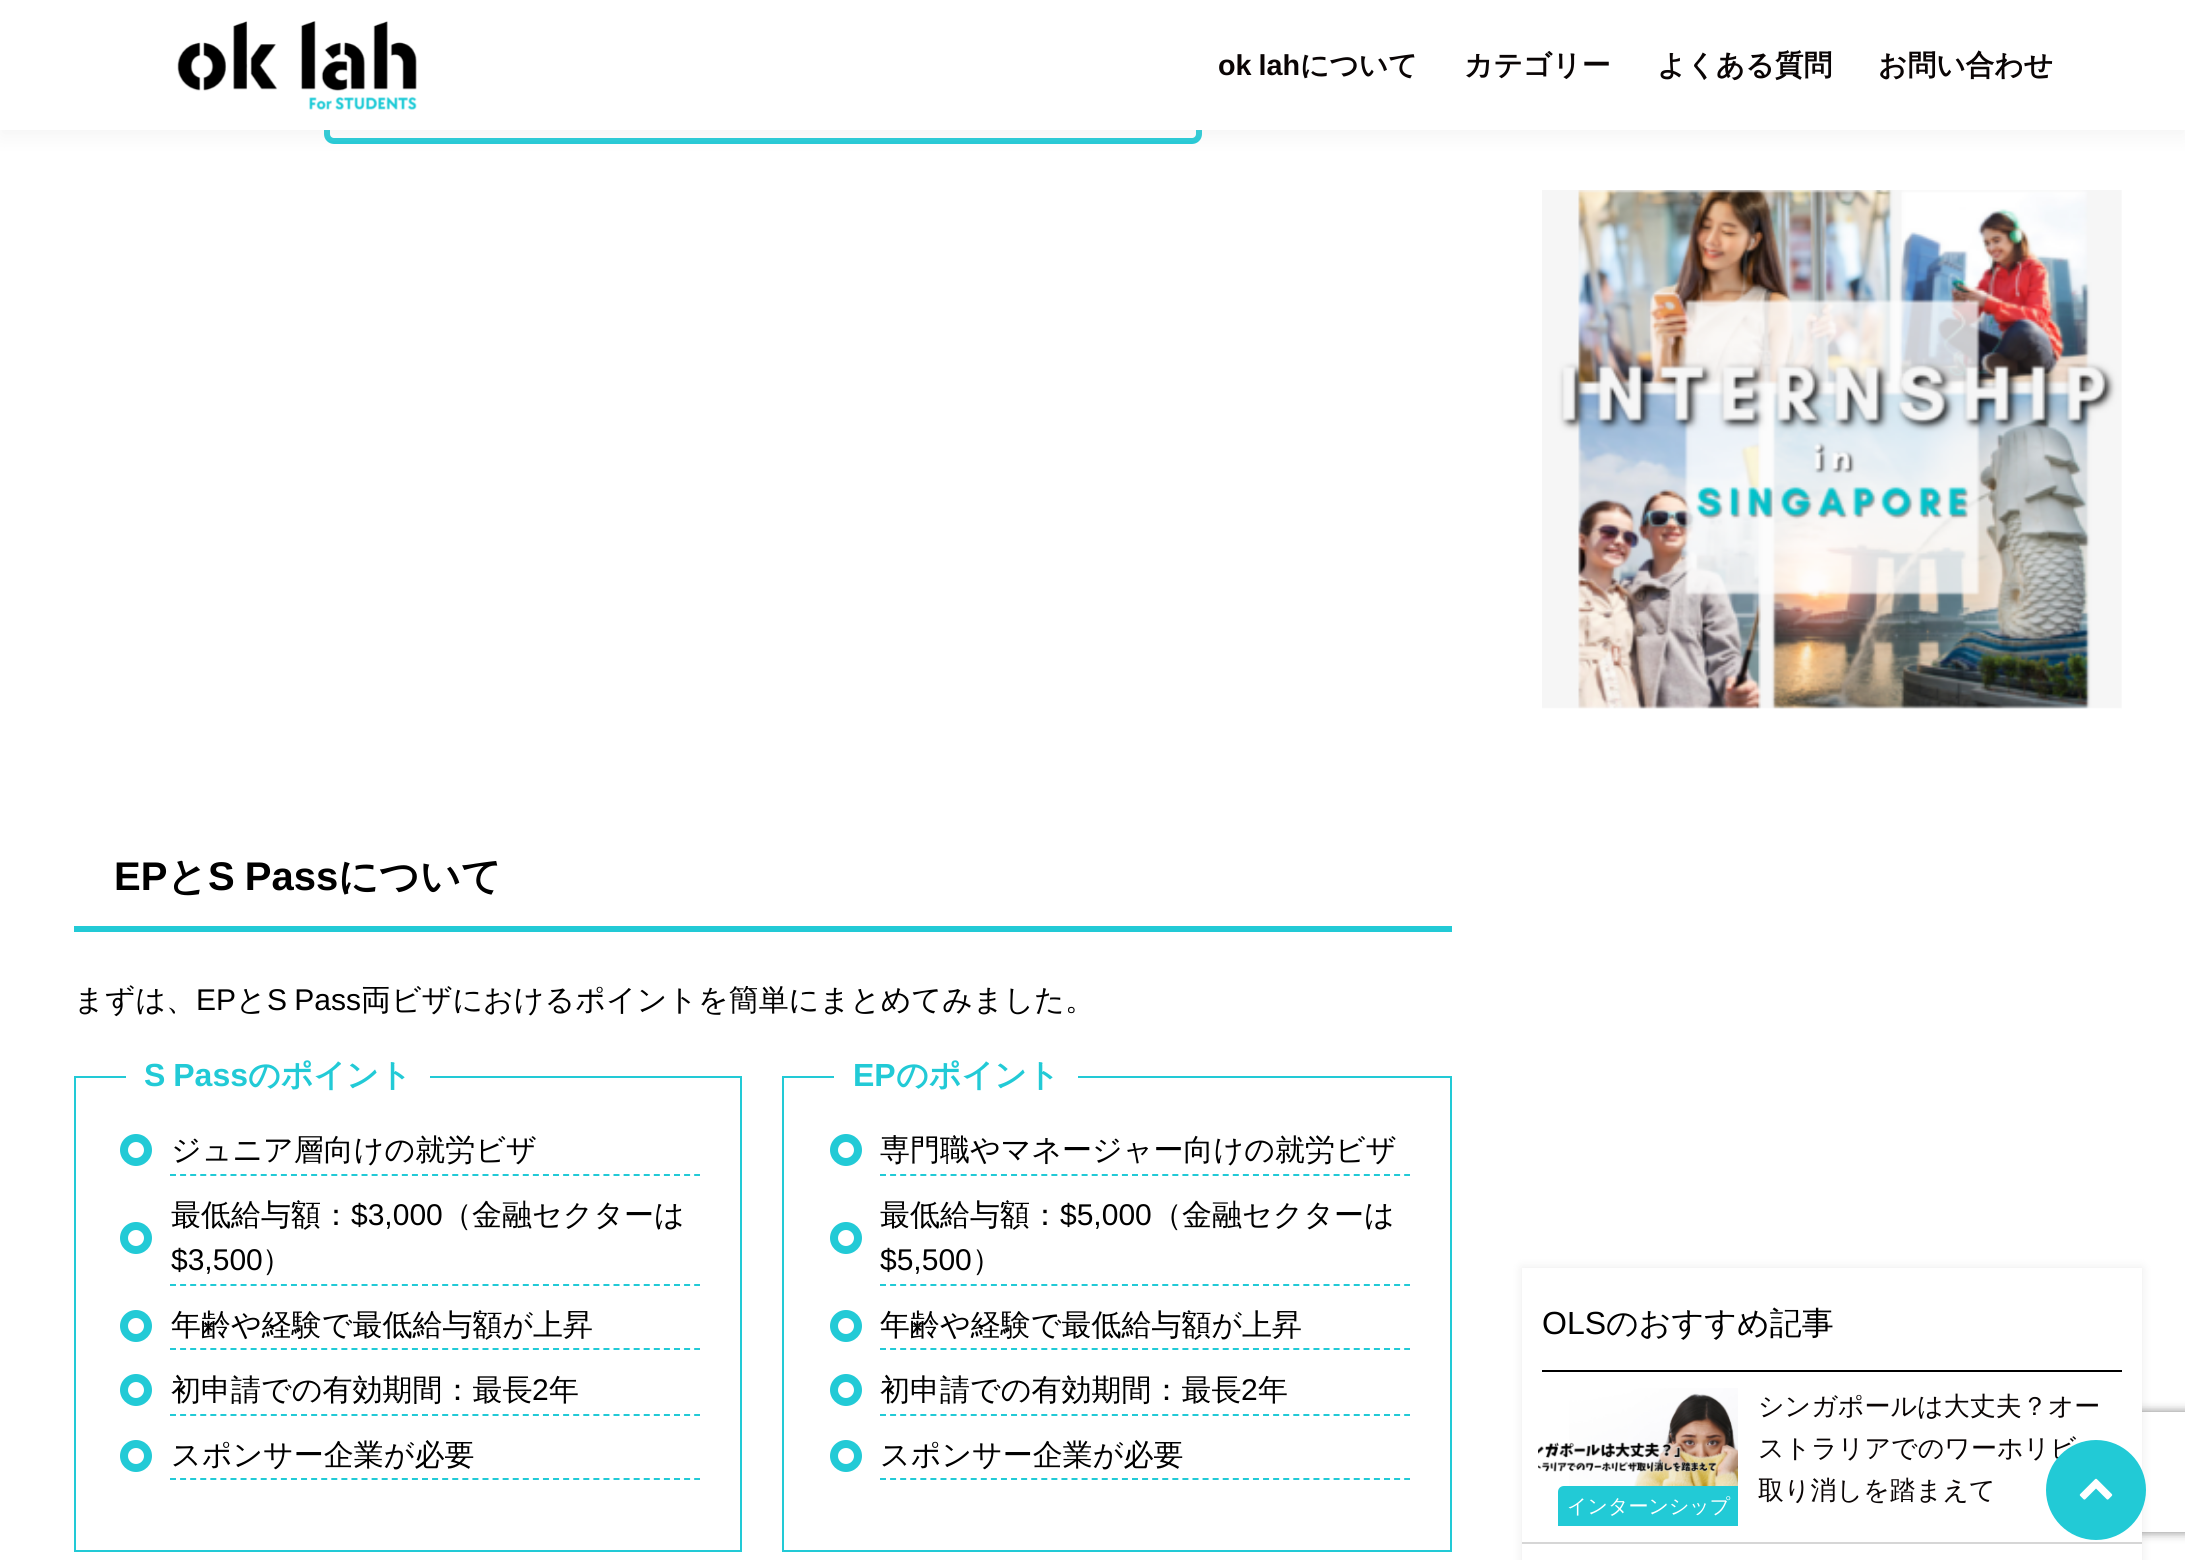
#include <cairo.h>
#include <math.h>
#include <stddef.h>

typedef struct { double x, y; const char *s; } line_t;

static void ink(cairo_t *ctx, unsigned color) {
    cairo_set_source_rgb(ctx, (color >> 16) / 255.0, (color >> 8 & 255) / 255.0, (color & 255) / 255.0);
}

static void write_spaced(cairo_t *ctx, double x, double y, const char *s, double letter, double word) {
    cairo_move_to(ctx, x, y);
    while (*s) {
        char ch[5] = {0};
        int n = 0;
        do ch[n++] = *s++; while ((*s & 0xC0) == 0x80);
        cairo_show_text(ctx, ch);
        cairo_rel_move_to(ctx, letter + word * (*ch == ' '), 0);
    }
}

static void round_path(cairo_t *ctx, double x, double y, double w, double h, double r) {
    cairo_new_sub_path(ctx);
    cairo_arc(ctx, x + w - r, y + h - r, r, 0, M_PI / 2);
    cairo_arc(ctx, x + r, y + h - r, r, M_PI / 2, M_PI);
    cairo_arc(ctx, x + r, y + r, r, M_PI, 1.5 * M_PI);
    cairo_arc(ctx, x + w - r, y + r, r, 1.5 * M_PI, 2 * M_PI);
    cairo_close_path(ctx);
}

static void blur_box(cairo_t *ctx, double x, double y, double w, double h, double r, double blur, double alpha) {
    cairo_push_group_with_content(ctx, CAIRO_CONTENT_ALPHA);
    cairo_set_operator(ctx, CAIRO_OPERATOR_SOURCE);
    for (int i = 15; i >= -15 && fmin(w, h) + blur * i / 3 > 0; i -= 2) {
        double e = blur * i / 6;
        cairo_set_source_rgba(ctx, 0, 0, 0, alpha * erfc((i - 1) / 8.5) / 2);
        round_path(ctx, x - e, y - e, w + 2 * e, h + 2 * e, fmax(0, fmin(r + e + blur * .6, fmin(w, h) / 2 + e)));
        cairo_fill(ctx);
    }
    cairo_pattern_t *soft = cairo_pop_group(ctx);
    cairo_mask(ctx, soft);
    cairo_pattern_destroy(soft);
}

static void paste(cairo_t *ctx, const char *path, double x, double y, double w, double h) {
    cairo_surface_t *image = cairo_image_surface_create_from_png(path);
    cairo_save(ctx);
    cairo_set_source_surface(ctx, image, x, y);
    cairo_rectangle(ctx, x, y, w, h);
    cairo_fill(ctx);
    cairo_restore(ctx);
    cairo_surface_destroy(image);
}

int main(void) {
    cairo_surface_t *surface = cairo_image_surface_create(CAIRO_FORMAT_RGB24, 2185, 1560);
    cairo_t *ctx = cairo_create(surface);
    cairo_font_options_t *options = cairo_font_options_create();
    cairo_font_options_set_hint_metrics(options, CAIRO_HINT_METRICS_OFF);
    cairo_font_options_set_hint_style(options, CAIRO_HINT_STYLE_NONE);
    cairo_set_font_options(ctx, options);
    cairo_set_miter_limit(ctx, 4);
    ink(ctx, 0xFFFFFF);
    cairo_paint(ctx);
    round_path(ctx, 327, -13, 872, 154, 7);
    ink(ctx, 0x22CAD6);
    cairo_set_line_width(ctx, 6);
    cairo_stroke(ctx);
    ink(ctx, 0xC8C8C8);
    blur_box(ctx, 0, 6, 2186, 130, 0, 10, 0.2);
    ink(ctx, 0xFFFFFF);
    cairo_rectangle(ctx, 0, 0, 2185, 130);
    cairo_fill(ctx);
    paste(ctx, "media/1.png", 177, 21, 240, 89);
    cairo_select_font_face(ctx, "Liberation Sans", CAIRO_FONT_SLANT_NORMAL, CAIRO_FONT_WEIGHT_BOLD);
    cairo_set_font_size(ctx, 28.75);
    ink(ctx, 0x0A0505);
    write_spaced(ctx, 1218, 75, "ok lah", 0, -1);
    cairo_select_font_face(ctx, "WenQuanYi Zen Hei", CAIRO_FONT_SLANT_NORMAL, CAIRO_FONT_WEIGHT_BOLD);
    {
        static const line_t items[] = {
            {1300, 75, "について"},
            {1464, 75, "カテゴリー"},
            {1657, 75, "よくある質問"},
            {1878, 75, "お問い合わせ"},
        };
        for (size_t i = 0; i < sizeof items / sizeof *items; i++) {
            cairo_move_to(ctx, items[i].x, items[i].y);
            cairo_show_text(ctx, items[i].s);
        }
    }
    ink(ctx, 0x22CAD6);
    cairo_rectangle(ctx, 74, 926, 1378, 6);
    cairo_fill(ctx);
    cairo_select_font_face(ctx, "Liberation Sans", CAIRO_FONT_SLANT_NORMAL, CAIRO_FONT_WEIGHT_BOLD);
    cairo_set_font_size(ctx, 40);
    ink(ctx, 0x000000);
    cairo_move_to(ctx, 114, 890);
    cairo_show_text(ctx, "EP");
    cairo_select_font_face(ctx, "WenQuanYi Zen Hei", CAIRO_FONT_SLANT_NORMAL, CAIRO_FONT_WEIGHT_BOLD);
    cairo_move_to(ctx, 167, 890);
    cairo_show_text(ctx, "と");
    cairo_select_font_face(ctx, "Liberation Sans", CAIRO_FONT_SLANT_NORMAL, CAIRO_FONT_WEIGHT_BOLD);
    write_spaced(ctx, 208, 890, "S Pass", 0, -1);
    cairo_select_font_face(ctx, "WenQuanYi Zen Hei", CAIRO_FONT_SLANT_NORMAL, CAIRO_FONT_WEIGHT_BOLD);
    cairo_move_to(ctx, 338, 890);
    cairo_show_text(ctx, "について");
    cairo_select_font_face(ctx, "WenQuanYi Zen Hei Medium", CAIRO_FONT_SLANT_NORMAL, CAIRO_FONT_WEIGHT_NORMAL);
    cairo_set_font_size(ctx, 30);
    cairo_move_to(ctx, 74, 1010);
    cairo_show_text(ctx, "まずは、");
    cairo_select_font_face(ctx, "Liberation Sans", CAIRO_FONT_SLANT_NORMAL, CAIRO_FONT_WEIGHT_NORMAL);
    cairo_move_to(ctx, 196, 1010);
    cairo_show_text(ctx, "EP");
    cairo_select_font_face(ctx, "WenQuanYi Zen Hei Medium", CAIRO_FONT_SLANT_NORMAL, CAIRO_FONT_WEIGHT_NORMAL);
    cairo_move_to(ctx, 236, 1010);
    cairo_show_text(ctx, "と");
    cairo_select_font_face(ctx, "Liberation Sans", CAIRO_FONT_SLANT_NORMAL, CAIRO_FONT_WEIGHT_NORMAL);
    write_spaced(ctx, 267, 1010, "S Pass", 0, -1);
    cairo_select_font_face(ctx, "WenQuanYi Zen Hei Medium", CAIRO_FONT_SLANT_NORMAL, CAIRO_FONT_WEIGHT_NORMAL);
    cairo_move_to(ctx, 361, 1010);
    cairo_show_text(ctx, "両ビザにおけるポイントを簡単にまとめてみました。");
    cairo_rectangle(ctx, 75, 1077, 666, 474);
    ink(ctx, 0x22CAD6);
    cairo_set_line_width(ctx, 2);
    cairo_stroke(ctx);
    ink(ctx, 0xFFFFFF);
    cairo_rectangle(ctx, 126, 1076, 304, 2);
    cairo_fill(ctx);
    cairo_select_font_face(ctx, "Liberation Sans", CAIRO_FONT_SLANT_NORMAL, CAIRO_FONT_WEIGHT_BOLD);
    cairo_set_font_size(ctx, 32);
    ink(ctx, 0x22CAD6);
    write_spaced(ctx, 144, 1086, "S Pass", 0, -1);
    cairo_select_font_face(ctx, "WenQuanYi Zen Hei", CAIRO_FONT_SLANT_NORMAL, CAIRO_FONT_WEIGHT_BOLD);
    cairo_move_to(ctx, 248, 1086);
    cairo_show_text(ctx, "のポイント");
    cairo_new_path(ctx);
    cairo_move_to(ctx, 170, 1175);
    cairo_line_to(ctx, 700, 1175);
    cairo_set_dash(ctx, (double[]){6, 4.08}, 2, 0);
    cairo_stroke(ctx);
    cairo_arc(ctx, 136, 1150, 16, 0, 2 * M_PI);
    cairo_fill(ctx);
    cairo_select_font_face(ctx, "WenQuanYi Zen Hei Medium", CAIRO_FONT_SLANT_NORMAL, CAIRO_FONT_WEIGHT_NORMAL);
    cairo_set_font_size(ctx, 30);
    ink(ctx, 0x000000);
    cairo_move_to(ctx, 171, 1160);
    cairo_show_text(ctx, "ジュニア層向けの就労ビザ");
    ink(ctx, 0xFFFFFF);
    cairo_new_path(ctx);
    cairo_arc(ctx, 136, 1150, 8, 0, 2 * M_PI);
    cairo_fill(ctx);
    cairo_new_path(ctx);
    cairo_move_to(ctx, 170, 1285);
    cairo_line_to(ctx, 700, 1285);
    ink(ctx, 0x22CAD6);
    cairo_stroke(ctx);
    ink(ctx, 0x000000);
    cairo_move_to(ctx, 171, 1225);
    cairo_show_text(ctx, "最低給与額：");
    cairo_select_font_face(ctx, "Liberation Sans", CAIRO_FONT_SLANT_NORMAL, CAIRO_FONT_WEIGHT_NORMAL);
    cairo_move_to(ctx, 351, 1225);
    cairo_show_text(ctx, "$3,000");
    cairo_select_font_face(ctx, "WenQuanYi Zen Hei Medium", CAIRO_FONT_SLANT_NORMAL, CAIRO_FONT_WEIGHT_NORMAL);
    cairo_move_to(ctx, 442, 1225);
    cairo_show_text(ctx, "（金融セクターは");
    ink(ctx, 0x22CAD6);
    cairo_new_path(ctx);
    cairo_arc(ctx, 136, 1238, 16, 0, 2 * M_PI);
    cairo_fill(ctx);
    ink(ctx, 0xFFFFFF);
    cairo_arc(ctx, 136, 1238, 8, 0, 2 * M_PI);
    cairo_fill(ctx);
    cairo_select_font_face(ctx, "Liberation Sans", CAIRO_FONT_SLANT_NORMAL, CAIRO_FONT_WEIGHT_NORMAL);
    ink(ctx, 0x000000);
    cairo_move_to(ctx, 171, 1270);
    cairo_show_text(ctx, "$3,500");
    cairo_select_font_face(ctx, "WenQuanYi Zen Hei Medium", CAIRO_FONT_SLANT_NORMAL, CAIRO_FONT_WEIGHT_NORMAL);
    cairo_move_to(ctx, 262, 1270);
    cairo_show_text(ctx, "）");
    cairo_new_path(ctx);
    cairo_move_to(ctx, 170, 1349);
    cairo_line_to(ctx, 700, 1349);
    ink(ctx, 0x22CAD6);
    cairo_stroke(ctx);
    cairo_arc(ctx, 136, 1326, 16, 0, 2 * M_PI);
    cairo_fill(ctx);
    ink(ctx, 0x000000);
    cairo_move_to(ctx, 171, 1335);
    cairo_show_text(ctx, "年齢や経験で最低給与額が上昇");
    ink(ctx, 0xFFFFFF);
    cairo_new_path(ctx);
    cairo_arc(ctx, 136, 1326, 8, 0, 2 * M_PI);
    cairo_fill(ctx);
    cairo_new_path(ctx);
    cairo_move_to(ctx, 170, 1415);
    cairo_line_to(ctx, 700, 1415);
    ink(ctx, 0x22CAD6);
    cairo_stroke(ctx);
    cairo_arc(ctx, 136, 1390, 16, 0, 2 * M_PI);
    cairo_fill(ctx);
    ink(ctx, 0x000000);
    cairo_move_to(ctx, 171, 1400);
    cairo_show_text(ctx, "初申請での有効期間：最長");
    cairo_select_font_face(ctx, "Liberation Sans", CAIRO_FONT_SLANT_NORMAL, CAIRO_FONT_WEIGHT_NORMAL);
    cairo_move_to(ctx, 532, 1400);
    cairo_show_text(ctx, "2");
    cairo_select_font_face(ctx, "WenQuanYi Zen Hei Medium", CAIRO_FONT_SLANT_NORMAL, CAIRO_FONT_WEIGHT_NORMAL);
    cairo_move_to(ctx, 549, 1400);
    cairo_show_text(ctx, "年");
    ink(ctx, 0xFFFFFF);
    cairo_new_path(ctx);
    cairo_arc(ctx, 136, 1390, 8, 0, 2 * M_PI);
    cairo_fill(ctx);
    cairo_new_path(ctx);
    cairo_move_to(ctx, 170, 1479);
    cairo_line_to(ctx, 700, 1479);
    ink(ctx, 0x22CAD6);
    cairo_stroke(ctx);
    cairo_arc(ctx, 136, 1456, 16, 0, 2 * M_PI);
    cairo_fill(ctx);
    ink(ctx, 0x000000);
    cairo_move_to(ctx, 171, 1465);
    cairo_show_text(ctx, "スポンサー企業が必要");
    ink(ctx, 0xFFFFFF);
    cairo_new_path(ctx);
    cairo_arc(ctx, 136, 1456, 8, 0, 2 * M_PI);
    cairo_fill(ctx);
    cairo_rectangle(ctx, 783, 1077, 668, 474);
    ink(ctx, 0x22CAD6);
    cairo_set_dash(ctx, NULL, 0, 0);
    cairo_stroke(ctx);
    ink(ctx, 0xFFFFFF);
    cairo_rectangle(ctx, 834, 1076, 244, 2);
    cairo_fill(ctx);
    cairo_select_font_face(ctx, "Liberation Sans", CAIRO_FONT_SLANT_NORMAL, CAIRO_FONT_WEIGHT_BOLD);
    cairo_set_font_size(ctx, 32);
    ink(ctx, 0x22CAD6);
    cairo_move_to(ctx, 853, 1086);
    cairo_show_text(ctx, "EP");
    cairo_select_font_face(ctx, "WenQuanYi Zen Hei", CAIRO_FONT_SLANT_NORMAL, CAIRO_FONT_WEIGHT_BOLD);
    cairo_move_to(ctx, 896, 1086);
    cairo_show_text(ctx, "のポイント");
    cairo_new_path(ctx);
    cairo_move_to(ctx, 880, 1175);
    cairo_line_to(ctx, 1410, 1175);
    cairo_set_dash(ctx, (double[]){6, 4.08}, 2, 0);
    cairo_stroke(ctx);
    cairo_arc(ctx, 846, 1150, 16, 0, 2 * M_PI);
    cairo_fill(ctx);
    cairo_select_font_face(ctx, "WenQuanYi Zen Hei Medium", CAIRO_FONT_SLANT_NORMAL, CAIRO_FONT_WEIGHT_NORMAL);
    cairo_set_font_size(ctx, 30);
    ink(ctx, 0x000000);
    cairo_move_to(ctx, 880, 1160);
    cairo_show_text(ctx, "専門職やマネージャー向けの就労ビザ");
    ink(ctx, 0xFFFFFF);
    cairo_new_path(ctx);
    cairo_arc(ctx, 846, 1150, 8, 0, 2 * M_PI);
    cairo_fill(ctx);
    cairo_new_path(ctx);
    cairo_move_to(ctx, 880, 1285);
    cairo_line_to(ctx, 1410, 1285);
    ink(ctx, 0x22CAD6);
    cairo_stroke(ctx);
    ink(ctx, 0x000000);
    cairo_move_to(ctx, 880, 1225);
    cairo_show_text(ctx, "最低給与額：");
    cairo_select_font_face(ctx, "Liberation Sans", CAIRO_FONT_SLANT_NORMAL, CAIRO_FONT_WEIGHT_NORMAL);
    cairo_move_to(ctx, 1060, 1225);
    cairo_show_text(ctx, "$5,000");
    cairo_select_font_face(ctx, "WenQuanYi Zen Hei Medium", CAIRO_FONT_SLANT_NORMAL, CAIRO_FONT_WEIGHT_NORMAL);
    cairo_move_to(ctx, 1152, 1225);
    cairo_show_text(ctx, "（金融セクターは");
    ink(ctx, 0x22CAD6);
    cairo_new_path(ctx);
    cairo_arc(ctx, 846, 1238, 16, 0, 2 * M_PI);
    cairo_fill(ctx);
    ink(ctx, 0xFFFFFF);
    cairo_arc(ctx, 846, 1238, 8, 0, 2 * M_PI);
    cairo_fill(ctx);
    cairo_select_font_face(ctx, "Liberation Sans", CAIRO_FONT_SLANT_NORMAL, CAIRO_FONT_WEIGHT_NORMAL);
    ink(ctx, 0x000000);
    cairo_move_to(ctx, 880, 1270);
    cairo_show_text(ctx, "$5,500");
    cairo_select_font_face(ctx, "WenQuanYi Zen Hei Medium", CAIRO_FONT_SLANT_NORMAL, CAIRO_FONT_WEIGHT_NORMAL);
    cairo_move_to(ctx, 972, 1270);
    cairo_show_text(ctx, "）");
    cairo_new_path(ctx);
    cairo_move_to(ctx, 880, 1349);
    cairo_line_to(ctx, 1410, 1349);
    ink(ctx, 0x22CAD6);
    cairo_stroke(ctx);
    cairo_arc(ctx, 846, 1326, 16, 0, 2 * M_PI);
    cairo_fill(ctx);
    ink(ctx, 0x000000);
    cairo_move_to(ctx, 880, 1335);
    cairo_show_text(ctx, "年齢や経験で最低給与額が上昇");
    ink(ctx, 0xFFFFFF);
    cairo_new_path(ctx);
    cairo_arc(ctx, 846, 1326, 8, 0, 2 * M_PI);
    cairo_fill(ctx);
    cairo_new_path(ctx);
    cairo_move_to(ctx, 880, 1415);
    cairo_line_to(ctx, 1410, 1415);
    ink(ctx, 0x22CAD6);
    cairo_stroke(ctx);
    cairo_arc(ctx, 846, 1390, 16, 0, 2 * M_PI);
    cairo_fill(ctx);
    ink(ctx, 0x000000);
    cairo_move_to(ctx, 880, 1400);
    cairo_show_text(ctx, "初申請での有効期間：最長");
    cairo_select_font_face(ctx, "Liberation Sans", CAIRO_FONT_SLANT_NORMAL, CAIRO_FONT_WEIGHT_NORMAL);
    cairo_move_to(ctx, 1241, 1400);
    cairo_show_text(ctx, "2");
    cairo_select_font_face(ctx, "WenQuanYi Zen Hei Medium", CAIRO_FONT_SLANT_NORMAL, CAIRO_FONT_WEIGHT_NORMAL);
    cairo_move_to(ctx, 1258, 1400);
    cairo_show_text(ctx, "年");
    ink(ctx, 0xFFFFFF);
    cairo_new_path(ctx);
    cairo_arc(ctx, 846, 1390, 8, 0, 2 * M_PI);
    cairo_fill(ctx);
    cairo_new_path(ctx);
    cairo_move_to(ctx, 880, 1479);
    cairo_line_to(ctx, 1410, 1479);
    ink(ctx, 0x22CAD6);
    cairo_stroke(ctx);
    cairo_arc(ctx, 846, 1456, 16, 0, 2 * M_PI);
    cairo_fill(ctx);
    ink(ctx, 0x000000);
    cairo_move_to(ctx, 880, 1465);
    cairo_show_text(ctx, "スポンサー企業が必要");
    ink(ctx, 0xFFFFFF);
    cairo_new_path(ctx);
    cairo_arc(ctx, 846, 1456, 8, 0, 2 * M_PI);
    cairo_fill(ctx);
    paste(ctx, "media/2.png", 1542, 190, 580, 519);
    ink(ctx, 0x969696);
    blur_box(ctx, 1522, 1268, 620, 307, 0, 5, 0.2);
    cairo_save(ctx);
    cairo_set_fill_rule(ctx, CAIRO_FILL_RULE_EVEN_ODD);
    cairo_new_path(ctx);
    cairo_move_to(ctx, 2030, 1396);
    cairo_line_to(ctx, 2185, 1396);
    cairo_line_to(ctx, 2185, 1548);
    cairo_line_to(ctx, 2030, 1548);
    cairo_close_path(ctx);
    cairo_move_to(ctx, 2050, 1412);
    cairo_line_to(ctx, 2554, 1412);
    cairo_curve_to(ctx, 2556, 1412, 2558, 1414, 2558, 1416);
    cairo_line_to(ctx, 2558, 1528);
    cairo_curve_to(ctx, 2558, 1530, 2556, 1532, 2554, 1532);
    cairo_line_to(ctx, 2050, 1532);
    cairo_curve_to(ctx, 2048, 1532, 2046, 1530, 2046, 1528);
    cairo_line_to(ctx, 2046, 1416);
    cairo_curve_to(ctx, 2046, 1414, 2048, 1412, 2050, 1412);
    cairo_close_path(ctx);
    cairo_clip(ctx);
    ink(ctx, 0x808080);
    blur_box(ctx, 2046, 1412, 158, 120, 4, 5, 1);
    cairo_restore(ctx);
    ink(ctx, 0xFFFFFF);
    cairo_rectangle(ctx, 1522, 1268, 620, 292);
    cairo_fill(ctx);
    ink(ctx, 0x000000);
    cairo_rectangle(ctx, 1542, 1370, 580, 2);
    cairo_fill(ctx);
    cairo_select_font_face(ctx, "Liberation Sans", CAIRO_FONT_SLANT_NORMAL, CAIRO_FONT_WEIGHT_NORMAL);
    cairo_set_font_size(ctx, 32);
    cairo_move_to(ctx, 1542, 1334);
    cairo_show_text(ctx, "OLS");
    cairo_select_font_face(ctx, "WenQuanYi Zen Hei Medium", CAIRO_FONT_SLANT_NORMAL, CAIRO_FONT_WEIGHT_NORMAL);
    cairo_move_to(ctx, 1606, 1334);
    cairo_show_text(ctx, "のおすすめ記事");
    ink(ctx, 0xD6D6D6);
    cairo_rectangle(ctx, 1522, 1542, 620, 2);
    cairo_fill(ctx);
    cairo_set_font_size(ctx, 26);
    ink(ctx, 0x0A0505);
    {
        static const line_t items[] = {
            {1758, 1415, "シンガポールは大丈夫？オー"},
            {1758, 1457, "ストラリアでのワーホリビ"},
            {1758, 1499, "取り消しを踏まえて"},
        };
        for (size_t i = 0; i < sizeof items / sizeof *items; i++) {
            cairo_move_to(ctx, items[i].x, items[i].y);
            cairo_show_text(ctx, items[i].s);
        }
    }
    paste(ctx, "media/3.png", 1538, 1388, 200, 138);
    ink(ctx, 0x22CAD6);
    cairo_new_path(ctx);
    cairo_move_to(ctx, 1564, 1486);
    cairo_line_to(ctx, 1738, 1486);
    cairo_line_to(ctx, 1738, 1526);
    cairo_line_to(ctx, 1558, 1526);
    cairo_line_to(ctx, 1558, 1492);
    cairo_curve_to(ctx, 1558, 1488.5, 1560.5, 1486, 1564, 1486);
    cairo_close_path(ctx);
    cairo_fill(ctx);
    cairo_set_font_size(ctx, 20);
    ink(ctx, 0xFFFFFF);
    cairo_move_to(ctx, 1567, 1513);
    cairo_show_text(ctx, "インターンシップ");
    ink(ctx, 0x22CAD6);
    cairo_new_path(ctx);
    cairo_arc(ctx, 2096, 1490, 50, 0, 2 * M_PI);
    cairo_fill(ctx);
    paste(ctx, "media/4.png", 2079, 1478, 34, 22);
    cairo_surface_write_to_png(surface, "image.png");
    cairo_font_options_destroy(options);
    cairo_destroy(ctx);
    cairo_surface_destroy(surface);
    return 0;
}
